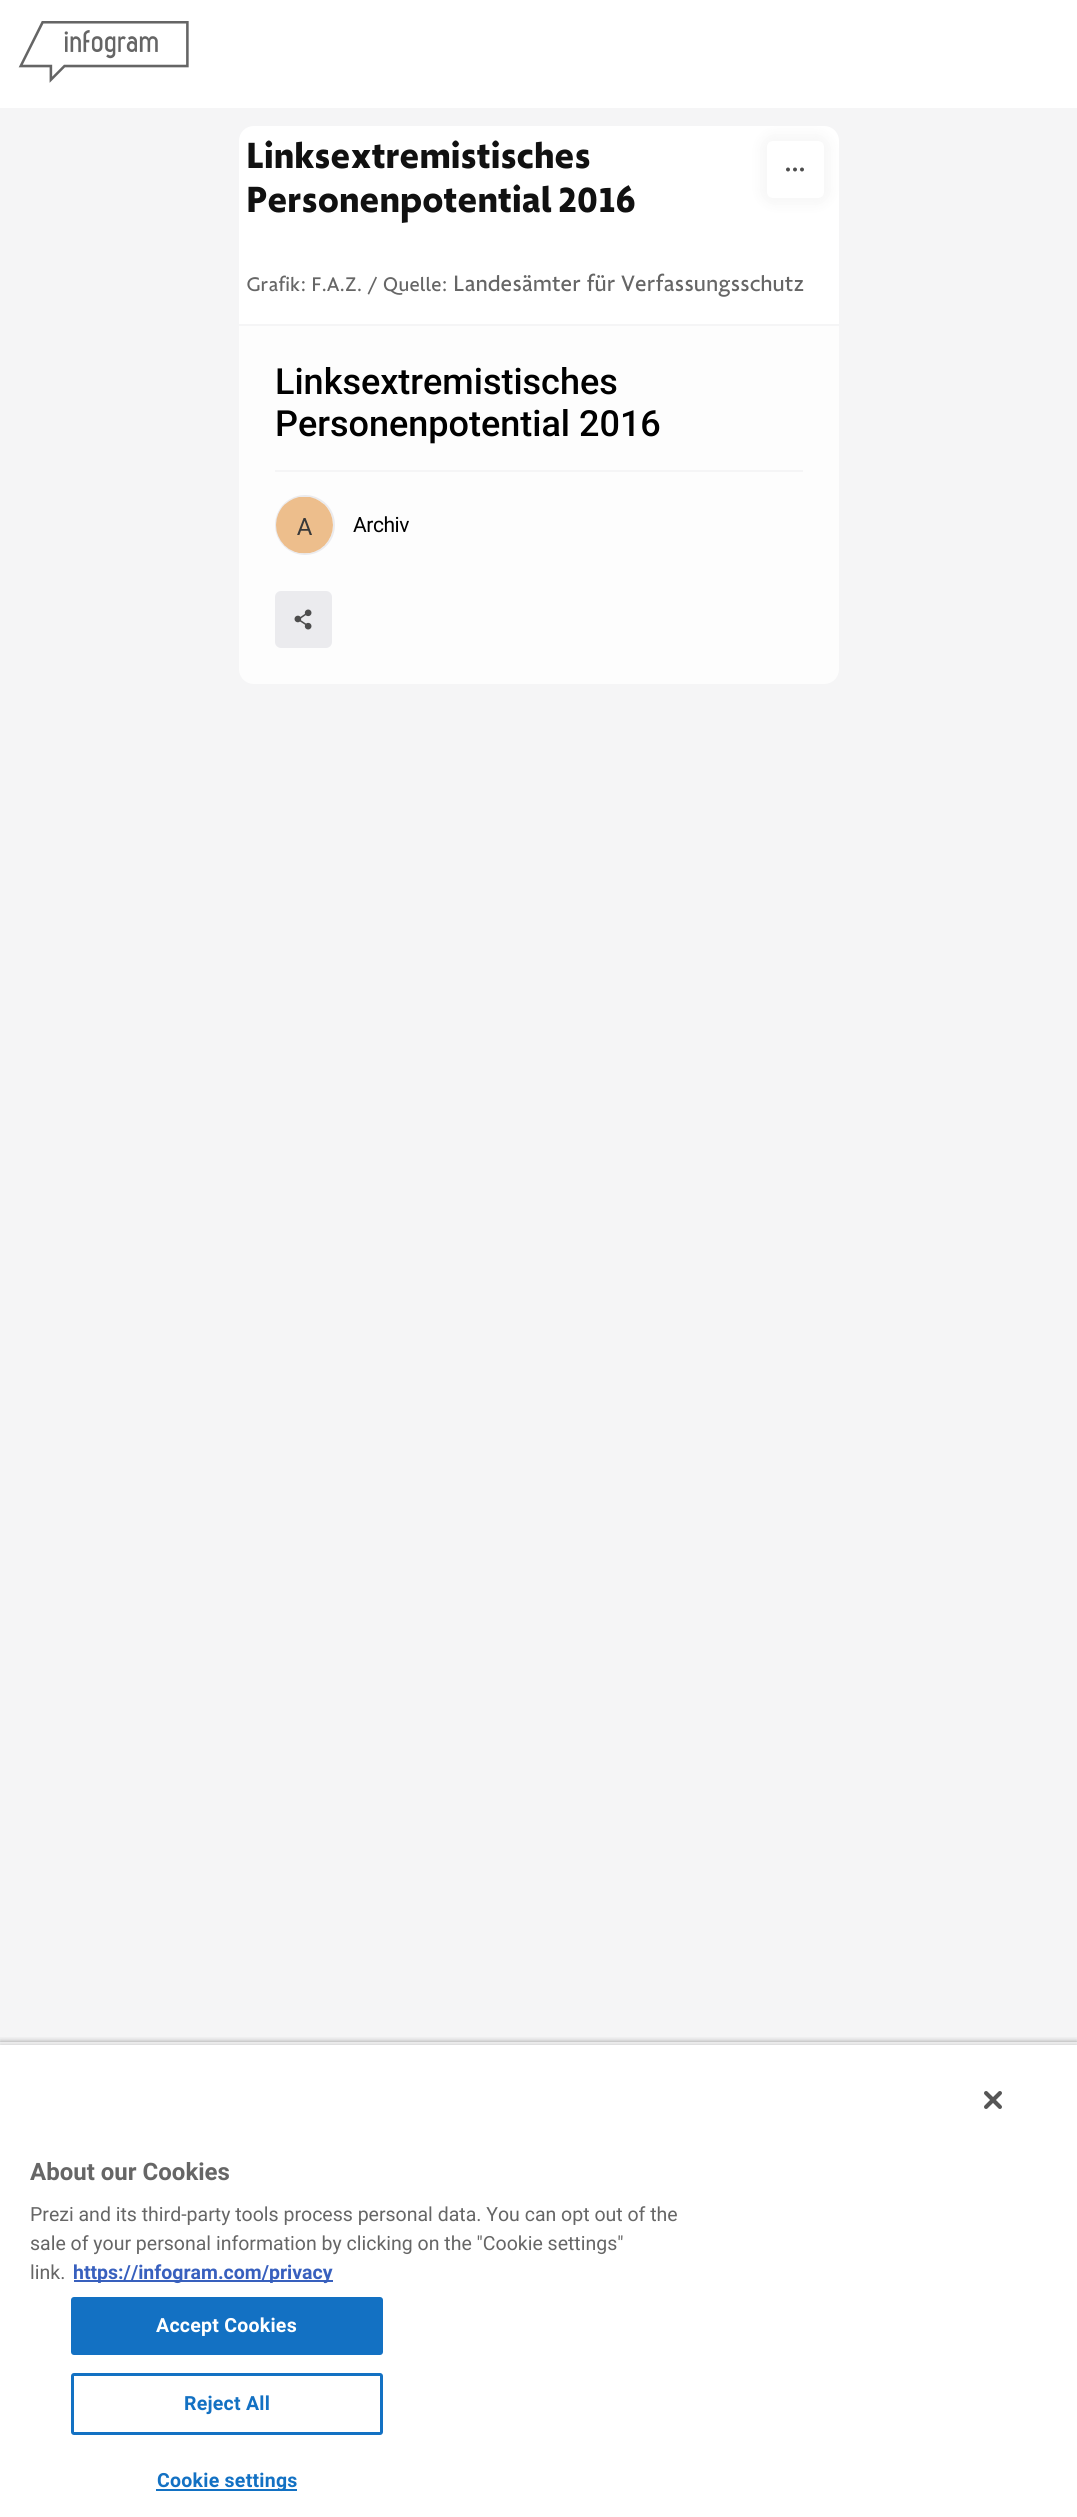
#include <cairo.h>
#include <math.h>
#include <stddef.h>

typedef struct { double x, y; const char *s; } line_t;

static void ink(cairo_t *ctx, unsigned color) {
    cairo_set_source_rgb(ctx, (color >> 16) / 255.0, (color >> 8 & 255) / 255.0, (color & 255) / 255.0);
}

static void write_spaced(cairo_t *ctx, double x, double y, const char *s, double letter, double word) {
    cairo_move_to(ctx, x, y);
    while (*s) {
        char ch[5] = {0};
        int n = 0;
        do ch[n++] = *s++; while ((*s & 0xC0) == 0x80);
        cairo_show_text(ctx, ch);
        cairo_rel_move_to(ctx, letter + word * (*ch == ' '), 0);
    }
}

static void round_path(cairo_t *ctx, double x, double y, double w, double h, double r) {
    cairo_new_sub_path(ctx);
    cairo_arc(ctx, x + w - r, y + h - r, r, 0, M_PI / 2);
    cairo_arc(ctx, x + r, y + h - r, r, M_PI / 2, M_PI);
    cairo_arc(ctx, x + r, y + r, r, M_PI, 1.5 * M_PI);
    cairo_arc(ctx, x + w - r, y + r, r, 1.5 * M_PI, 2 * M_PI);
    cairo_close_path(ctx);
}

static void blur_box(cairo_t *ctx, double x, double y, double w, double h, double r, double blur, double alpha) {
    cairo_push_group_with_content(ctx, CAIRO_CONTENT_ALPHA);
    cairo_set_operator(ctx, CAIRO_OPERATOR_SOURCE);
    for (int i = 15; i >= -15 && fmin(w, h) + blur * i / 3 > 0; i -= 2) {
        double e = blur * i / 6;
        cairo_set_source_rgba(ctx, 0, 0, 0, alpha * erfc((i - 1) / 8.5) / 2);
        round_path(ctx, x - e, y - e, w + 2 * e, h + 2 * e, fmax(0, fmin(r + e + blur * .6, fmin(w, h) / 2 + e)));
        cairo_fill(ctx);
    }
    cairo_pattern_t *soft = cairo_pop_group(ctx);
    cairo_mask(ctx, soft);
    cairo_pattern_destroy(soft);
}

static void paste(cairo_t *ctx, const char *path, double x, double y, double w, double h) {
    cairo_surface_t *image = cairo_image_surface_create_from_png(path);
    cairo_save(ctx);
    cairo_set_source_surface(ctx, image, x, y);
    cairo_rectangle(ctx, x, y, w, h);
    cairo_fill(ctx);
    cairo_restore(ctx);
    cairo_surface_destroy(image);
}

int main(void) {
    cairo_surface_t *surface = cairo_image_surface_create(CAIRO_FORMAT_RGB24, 1077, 2517);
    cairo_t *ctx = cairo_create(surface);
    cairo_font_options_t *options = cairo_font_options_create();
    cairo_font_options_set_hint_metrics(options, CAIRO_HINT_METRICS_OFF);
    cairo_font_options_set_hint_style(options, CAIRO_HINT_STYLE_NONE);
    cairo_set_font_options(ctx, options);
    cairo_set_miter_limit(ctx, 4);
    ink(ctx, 0xF5F5F6);
    cairo_paint(ctx);
    ink(ctx, 0xFFFFFF);
    cairo_rectangle(ctx, 0, 0, 1077, 108);
    cairo_fill(ctx);
    paste(ctx, "media/1.png", 18, 21, 171, 62);
    cairo_new_path(ctx);
    cairo_move_to(ctx, 254, 126);
    cairo_line_to(ctx, 824, 126);
    cairo_curve_to(ctx, 832.5, 126, 839, 132.5, 839, 141);
    cairo_line_to(ctx, 839, 324);
    cairo_line_to(ctx, 239, 324);
    cairo_line_to(ctx, 239, 141);
    cairo_curve_to(ctx, 239, 132.5, 245.5, 126, 254, 126);
    cairo_close_path(ctx);
    cairo_fill(ctx);
    ink(ctx, 0x000000);
    blur_box(ctx, 761, 135, 69, 69, 12, 7.5, 0.04);
    ink(ctx, 0xFFFFFF);
    round_path(ctx, 767, 141, 57, 57, 6);
    cairo_fill(ctx);
    paste(ctx, "media/2.png", 786, 167, 18, 5);
    cairo_select_font_face(ctx, "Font", CAIRO_FONT_SLANT_NORMAL, CAIRO_FONT_WEIGHT_BOLD);
    cairo_set_font_size(ctx, 36);
    ink(ctx, 0x111111);
    write_spaced(ctx, 246, 168, "Linksextremistisches", -0.45, 0);
    write_spaced(ctx, 246, 212, "Personenpotential 2016", -0.45, 0);
    cairo_select_font_face(ctx, "Font", CAIRO_FONT_SLANT_NORMAL, CAIRO_FONT_WEIGHT_NORMAL);
    cairo_set_font_size(ctx, 19.5);
    ink(ctx, 0x666666);
    cairo_move_to(ctx, 246, 291);
    cairo_show_text(ctx, "Grafik: F.A.Z. / Quelle:");
    cairo_set_font_size(ctx, 22);
    cairo_move_to(ctx, 453, 291);
    cairo_show_text(ctx, "Landesämter für Verfassungsschutz");
    ink(ctx, 0xFDFDFD);
    cairo_new_path(ctx);
    cairo_move_to(ctx, 239, 324);
    cairo_line_to(ctx, 839, 324);
    cairo_line_to(ctx, 839, 669);
    cairo_curve_to(ctx, 839, 677.5, 832.5, 684, 824, 684);
    cairo_line_to(ctx, 254, 684);
    cairo_curve_to(ctx, 245.5, 684, 239, 677.5, 239, 669);
    cairo_close_path(ctx);
    cairo_fill(ctx);
    ink(ctx, 0xF5F5F6);
    cairo_rectangle(ctx, 239, 324, 600, 2);
    cairo_fill(ctx);
    cairo_select_font_face(ctx, "Roboto Medium", CAIRO_FONT_SLANT_NORMAL, CAIRO_FONT_WEIGHT_NORMAL);
    cairo_set_font_size(ctx, 36);
    ink(ctx, 0x000000);
    cairo_move_to(ctx, 275, 394);
    cairo_show_text(ctx, "Linksextremistisches");
    cairo_move_to(ctx, 275, 436);
    cairo_show_text(ctx, "Personenpotential 2016");
    ink(ctx, 0xF5F5F6);
    cairo_rectangle(ctx, 275, 470, 528, 2);
    cairo_fill(ctx);
    cairo_arc(ctx, 305, 525, 29, 0, 2 * M_PI);
    ink(ctx, 0xEBEBEE);
    cairo_stroke(ctx);
    paste(ctx, "media/3.png", 276, 497, 57, 57);
    cairo_select_font_face(ctx, "Roboto", CAIRO_FONT_SLANT_NORMAL, CAIRO_FONT_WEIGHT_NORMAL);
    cairo_set_font_size(ctx, 21);
    ink(ctx, 0x000000);
    write_spaced(ctx, 353, 532, "Archiv", -0.45, 0);
    ink(ctx, 0xEBEBEE);
    round_path(ctx, 275, 591, 57, 57, 6);
    cairo_fill(ctx);
    paste(ctx, "media/4.png", 294, 609, 18, 21);
    cairo_save(ctx);
    cairo_rectangle(ctx, 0, 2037, 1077, 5);
    cairo_clip(ctx);
    ink(ctx, 0x000000);
    blur_box(ctx, 0, 2042, 1077, 475, 0, 3, 0.35);
    cairo_restore(ctx);
    ink(ctx, 0x000000);
    blur_box(ctx, 0, 2045, 1077, 472, 0, 3, 0.2);
    ink(ctx, 0xFFFFFF);
    cairo_rectangle(ctx, 0, 2045, 1077, 472);
    cairo_fill(ctx);
    paste(ctx, "media/5.png", 984, 2091, 18, 18);
    cairo_select_font_face(ctx, "Roboto", CAIRO_FONT_SLANT_NORMAL, CAIRO_FONT_WEIGHT_BOLD);
    cairo_set_font_size(ctx, 24);
    ink(ctx, 0x666666);
    cairo_move_to(ctx, 30, 2180);
    cairo_show_text(ctx, "About our Cookies");
    cairo_select_font_face(ctx, "Roboto", CAIRO_FONT_SLANT_NORMAL, CAIRO_FONT_WEIGHT_NORMAL);
    cairo_set_font_size(ctx, 19.5);
    {
        static const line_t items[] = {
            {30, 2221, "Prezi and its third-party tools process personal data. You can opt out of the"},
            {30, 2250, "sale of your personal information by clicking on the \"Cookie settings\""},
            {30, 2279, "link."},
        };
        for (size_t i = 0; i < sizeof items / sizeof *items; i++) {
            cairo_move_to(ctx, items[i].x, items[i].y);
            cairo_show_text(ctx, items[i].s);
        }
    }
    ink(ctx, 0x3860BE);
    cairo_rectangle(ctx, 74, 2280, 259, 2);
    cairo_fill(ctx);
    cairo_select_font_face(ctx, "Roboto", CAIRO_FONT_SLANT_NORMAL, CAIRO_FONT_WEIGHT_BOLD);
    cairo_move_to(ctx, 73, 2279);
    cairo_show_text(ctx, "https://infogram.com/privacy");
    ink(ctx, 0x1371C3);
    round_path(ctx, 72, 2298, 310, 56, 2);
    cairo_fill_preserve(ctx);
    cairo_stroke(ctx);
    ink(ctx, 0xFFFFFF);
    write_spaced(ctx, 156, 2332, "Accept Cookies", 0.25, 0);
    round_path(ctx, 72.5, 2374.5, 309, 59, 1.5);
    ink(ctx, 0x1371C3);
    cairo_set_line_width(ctx, 3);
    cairo_stroke(ctx);
    write_spaced(ctx, 184, 2410, "Reject All", 0.25, 0);
    cairo_rectangle(ctx, 156, 2489, 141, 2);
    cairo_fill(ctx);
    write_spaced(ctx, 157, 2487, "Cookie settings", 0.25, 0);
    cairo_surface_write_to_png(surface, "image.png");
    cairo_font_options_destroy(options);
    cairo_destroy(ctx);
    cairo_surface_destroy(surface);
    return 0;
}
